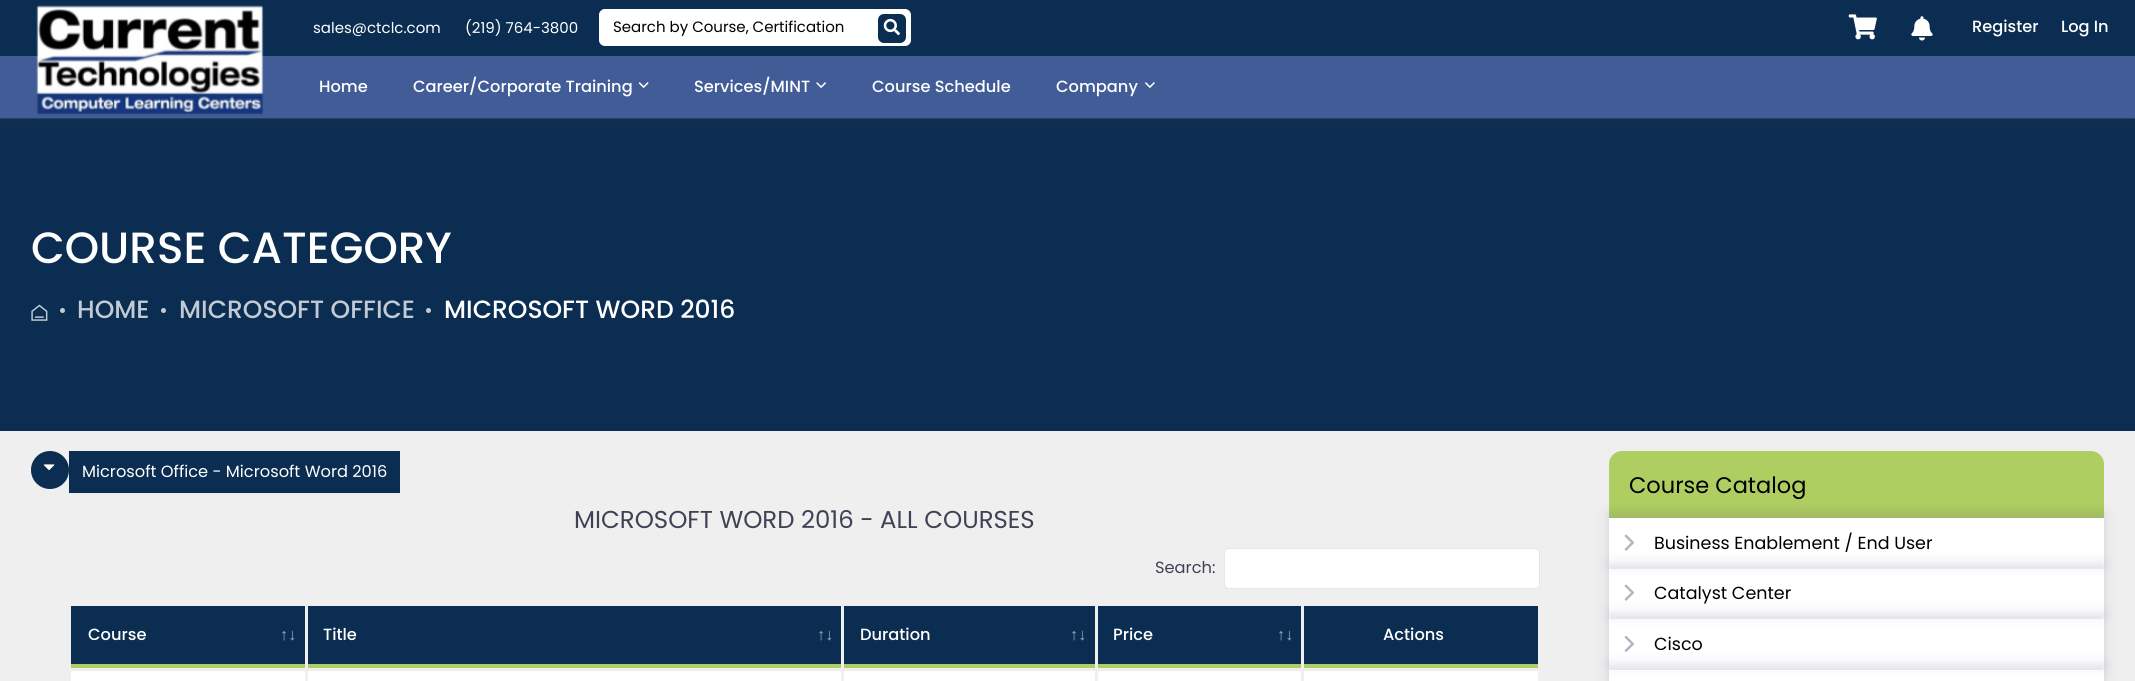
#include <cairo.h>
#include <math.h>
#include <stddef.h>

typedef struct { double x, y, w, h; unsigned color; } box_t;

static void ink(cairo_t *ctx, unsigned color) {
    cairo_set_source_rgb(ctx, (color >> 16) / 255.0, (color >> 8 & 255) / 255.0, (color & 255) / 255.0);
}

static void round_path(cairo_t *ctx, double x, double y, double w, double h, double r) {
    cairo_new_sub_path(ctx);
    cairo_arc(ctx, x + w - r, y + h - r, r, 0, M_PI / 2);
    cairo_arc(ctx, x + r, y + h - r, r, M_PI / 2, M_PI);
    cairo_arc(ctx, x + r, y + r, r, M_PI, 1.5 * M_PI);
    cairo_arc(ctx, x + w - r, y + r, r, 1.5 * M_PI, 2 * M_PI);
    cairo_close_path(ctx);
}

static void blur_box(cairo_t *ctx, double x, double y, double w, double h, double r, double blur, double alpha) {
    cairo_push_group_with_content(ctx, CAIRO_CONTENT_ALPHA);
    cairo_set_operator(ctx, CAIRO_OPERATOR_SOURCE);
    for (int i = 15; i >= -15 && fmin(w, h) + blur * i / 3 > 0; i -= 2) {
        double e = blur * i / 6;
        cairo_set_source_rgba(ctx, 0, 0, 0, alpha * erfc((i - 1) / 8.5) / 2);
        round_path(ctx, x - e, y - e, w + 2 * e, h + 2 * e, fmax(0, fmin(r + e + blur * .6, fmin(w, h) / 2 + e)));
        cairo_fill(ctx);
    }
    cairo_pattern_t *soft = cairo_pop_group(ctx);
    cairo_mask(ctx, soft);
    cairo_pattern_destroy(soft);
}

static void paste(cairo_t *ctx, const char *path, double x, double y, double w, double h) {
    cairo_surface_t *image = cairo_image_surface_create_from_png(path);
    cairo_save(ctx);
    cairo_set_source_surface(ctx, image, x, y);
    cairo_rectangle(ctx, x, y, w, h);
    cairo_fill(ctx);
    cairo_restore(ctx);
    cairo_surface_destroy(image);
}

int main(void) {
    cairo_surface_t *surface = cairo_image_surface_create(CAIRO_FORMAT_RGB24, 2135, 681);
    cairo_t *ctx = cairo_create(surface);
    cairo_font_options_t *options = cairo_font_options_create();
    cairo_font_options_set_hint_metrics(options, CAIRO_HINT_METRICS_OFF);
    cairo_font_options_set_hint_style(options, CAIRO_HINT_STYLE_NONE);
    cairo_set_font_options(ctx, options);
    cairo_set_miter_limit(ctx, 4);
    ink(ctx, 0xEFEFEF);
    cairo_paint(ctx);
    ink(ctx, 0x0A2D51);
    cairo_rectangle(ctx, 0, 119, 2135, 312);
    cairo_fill(ctx);
    ink(ctx, 0x523F69);
    blur_box(ctx, 0, 13, 2135, 118, 0, 19, 0.08);
    {
        static const box_t items[] = {
            {0, 0, 2135, 56, 0x0A2D51},
            {0, 56, 2135, 62, 0x415C96},
            {0, 118, 2135, 1, 0x234262},
        };
        for (size_t i = 0; i < sizeof items / sizeof *items; i++) {
            ink(ctx, items[i].color);
            cairo_rectangle(ctx, items[i].x, items[i].y, items[i].w, items[i].h);
            cairo_fill(ctx);
        }
    }
    paste(ctx, "media/1.png", 36, 5, 228, 110);
    cairo_select_font_face(ctx, "Poppins", CAIRO_FONT_SLANT_NORMAL, CAIRO_FONT_WEIGHT_NORMAL);
    cairo_set_font_size(ctx, 15);
    ink(ctx, 0xFFFFFF);
    cairo_move_to(ctx, 313, 33);
    cairo_show_text(ctx, "sales@ctclc.com");
    cairo_move_to(ctx, 465, 33);
    cairo_show_text(ctx, "(219) 764-3800");
    round_path(ctx, 599.5, 9.5, 311, 36, 5.5);
    cairo_fill_preserve(ctx);
    cairo_set_line_width(ctx, 1);
    cairo_stroke(ctx);
    ink(ctx, 0x000000);
    cairo_move_to(ctx, 613, 32);
    cairo_show_text(ctx, "Search by Course, Certification");
    ink(ctx, 0x0A2D51);
    round_path(ctx, 878, 14, 28, 29, 6);
    cairo_fill(ctx);
    paste(ctx, "media/2.png", 883, 18, 17, 18);
    paste(ctx, "media/3.png", 1848, 14, 29, 26);
    paste(ctx, "media/4.png", 1911, 16, 22, 25);
    cairo_select_font_face(ctx, "Poppins Medium", CAIRO_FONT_SLANT_NORMAL, CAIRO_FONT_WEIGHT_NORMAL);
    cairo_set_font_size(ctx, 16.25);
    ink(ctx, 0xFFFFFF);
    cairo_move_to(ctx, 319, 92);
    cairo_show_text(ctx, "Home");
    cairo_move_to(ctx, 413, 92);
    cairo_show_text(ctx, "Career/Corporate Training");
    paste(ctx, "media/5.png", 638, 82, 11, 6);
    cairo_move_to(ctx, 694, 92);
    cairo_show_text(ctx, "Services/MINT");
    paste(ctx, "media/6.png", 816, 82, 10, 6);
    cairo_move_to(ctx, 872, 92);
    cairo_show_text(ctx, "Course Schedule");
    cairo_move_to(ctx, 1056, 92);
    cairo_show_text(ctx, "Company");
    paste(ctx, "media/7.png", 1145, 82, 10, 6);
    cairo_move_to(ctx, 1972, 32);
    cairo_show_text(ctx, "Register");
    cairo_move_to(ctx, 2061, 32);
    cairo_show_text(ctx, "Log In");
    cairo_set_font_size(ctx, 43.75);
    cairo_move_to(ctx, 31, 263);
    cairo_show_text(ctx, "COURSE CATEGORY");
    paste(ctx, "media/8.png", 31, 304, 17, 17);
    ink(ctx, 0xC2CBD4);
    cairo_arc(ctx, 62.5, 310.5, 2.5, 0, 2 * M_PI);
    cairo_fill(ctx);
    cairo_set_font_size(ctx, 25);
    cairo_move_to(ctx, 77, 318);
    cairo_show_text(ctx, "HOME");
    cairo_new_path(ctx);
    cairo_arc(ctx, 163.5, 310.5, 2.5, 0, 2 * M_PI);
    cairo_fill(ctx);
    cairo_move_to(ctx, 179, 318);
    cairo_show_text(ctx, "MICROSOFT OFFICE");
    cairo_new_path(ctx);
    cairo_arc(ctx, 428.5, 310.5, 2.5, 0, 2 * M_PI);
    cairo_fill(ctx);
    ink(ctx, 0xFFFFFF);
    cairo_move_to(ctx, 444, 318);
    cairo_show_text(ctx, "MICROSOFT WORD 2016");
    ink(ctx, 0x0A2D51);
    cairo_new_path(ctx);
    cairo_arc(ctx, 50, 470, 19, 0, 2 * M_PI);
    cairo_fill(ctx);
    paste(ctx, "media/9.png", 43, 464, 12, 7);
    cairo_rectangle(ctx, 69, 451, 331, 42);
    cairo_fill(ctx);
    cairo_select_font_face(ctx, "Poppins", CAIRO_FONT_SLANT_NORMAL, CAIRO_FONT_WEIGHT_NORMAL);
    cairo_set_font_size(ctx, 16.25);
    ink(ctx, 0xFFFFFF);
    cairo_move_to(ctx, 82, 477);
    cairo_show_text(ctx, "Microsoft Office - Microsoft Word 2016");
    round_path(ctx, 31.5, 493.5, 1546, 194, 5.5);
    ink(ctx, 0xEBEDF3);
    cairo_stroke(ctx);
    cairo_rectangle(ctx, 33, 546, 1543, 1);
    cairo_fill(ctx);
    cairo_set_font_size(ctx, 24.4);
    ink(ctx, 0x3F4254);
    cairo_move_to(ctx, 574, 528);
    cairo_show_text(ctx, "MICROSOFT WORD 2016 - ALL COURSES");
    cairo_set_font_size(ctx, 16.25);
    cairo_move_to(ctx, 1155, 573);
    cairo_show_text(ctx, "Search:");
    ink(ctx, 0xFFFFFF);
    round_path(ctx, 1225, 549, 314, 39, 3);
    cairo_fill(ctx);
    round_path(ctx, 1224.5, 548.5, 315, 40, 4.5);
    ink(ctx, 0xE4E6EF);
    cairo_stroke(ctx);
    ink(ctx, 0x0A2D51);
    cairo_rectangle(ctx, 71, 606, 234, 58);
    cairo_fill(ctx);
    ink(ctx, 0xAECE61);
    cairo_rectangle(ctx, 71, 664, 234, 4);
    cairo_fill(ctx);
    cairo_select_font_face(ctx, "Poppins Medium", CAIRO_FONT_SLANT_NORMAL, CAIRO_FONT_WEIGHT_NORMAL);
    ink(ctx, 0xFFFFFF);
    cairo_move_to(ctx, 88, 640);
    cairo_show_text(ctx, "Course");
    cairo_select_font_face(ctx, "Liberation Sans", CAIRO_FONT_SLANT_NORMAL, CAIRO_FONT_WEIGHT_NORMAL);
    ink(ctx, 0x9DABB9);
    cairo_move_to(ctx, 280, 640);
    cairo_show_text(ctx, "↑↓");
    ink(ctx, 0x0A2D51);
    cairo_rectangle(ctx, 308, 606, 533, 58);
    cairo_fill(ctx);
    ink(ctx, 0xAECE61);
    cairo_rectangle(ctx, 308, 664, 533, 4);
    cairo_fill(ctx);
    cairo_select_font_face(ctx, "Poppins Medium", CAIRO_FONT_SLANT_NORMAL, CAIRO_FONT_WEIGHT_NORMAL);
    ink(ctx, 0xFFFFFF);
    cairo_move_to(ctx, 323, 640);
    cairo_show_text(ctx, "Title");
    cairo_select_font_face(ctx, "Liberation Sans", CAIRO_FONT_SLANT_NORMAL, CAIRO_FONT_WEIGHT_NORMAL);
    ink(ctx, 0x9DABB9);
    cairo_move_to(ctx, 817, 640);
    cairo_show_text(ctx, "↑↓");
    ink(ctx, 0x0A2D51);
    cairo_rectangle(ctx, 844, 606, 251, 58);
    cairo_fill(ctx);
    ink(ctx, 0xAECE61);
    cairo_rectangle(ctx, 844, 664, 251, 4);
    cairo_fill(ctx);
    cairo_select_font_face(ctx, "Poppins Medium", CAIRO_FONT_SLANT_NORMAL, CAIRO_FONT_WEIGHT_NORMAL);
    ink(ctx, 0xFFFFFF);
    cairo_move_to(ctx, 860, 640);
    cairo_show_text(ctx, "Duration");
    cairo_select_font_face(ctx, "Liberation Sans", CAIRO_FONT_SLANT_NORMAL, CAIRO_FONT_WEIGHT_NORMAL);
    ink(ctx, 0x9DABB9);
    cairo_move_to(ctx, 1070, 640);
    cairo_show_text(ctx, "↑↓");
    ink(ctx, 0x0A2D51);
    cairo_rectangle(ctx, 1098, 606, 203, 58);
    cairo_fill(ctx);
    ink(ctx, 0xAECE61);
    cairo_rectangle(ctx, 1098, 664, 203, 4);
    cairo_fill(ctx);
    cairo_select_font_face(ctx, "Poppins Medium", CAIRO_FONT_SLANT_NORMAL, CAIRO_FONT_WEIGHT_NORMAL);
    ink(ctx, 0xFFFFFF);
    cairo_move_to(ctx, 1113, 640);
    cairo_show_text(ctx, "Price");
    cairo_select_font_face(ctx, "Liberation Sans", CAIRO_FONT_SLANT_NORMAL, CAIRO_FONT_WEIGHT_NORMAL);
    ink(ctx, 0x9DABB9);
    cairo_move_to(ctx, 1277, 640);
    cairo_show_text(ctx, "↑↓");
    ink(ctx, 0x0A2D51);
    cairo_rectangle(ctx, 1304, 606, 234, 58);
    cairo_fill(ctx);
    ink(ctx, 0xAECE61);
    cairo_rectangle(ctx, 1304, 664, 234, 4);
    cairo_fill(ctx);
    cairo_select_font_face(ctx, "Poppins Medium", CAIRO_FONT_SLANT_NORMAL, CAIRO_FONT_WEIGHT_NORMAL);
    ink(ctx, 0xFFFFFF);
    cairo_move_to(ctx, 1383, 640);
    cairo_show_text(ctx, "Actions");
    {
        static const box_t items[] = {
            {71, 671, 234, 10, 0xFFFFFF},
            {71, 670, 234, 1, 0xEBEDF3},
            {308, 671, 533, 10, 0xFFFFFF},
            {308, 670, 533, 1, 0xEBEDF3},
            {844, 671, 251, 10, 0xFFFFFF},
            {844, 670, 251, 1, 0xEBEDF3},
            {1098, 671, 203, 10, 0xFFFFFF},
            {1098, 670, 203, 1, 0xEBEDF3},
            {1304, 671, 234, 10, 0xFFFFFF},
            {1304, 670, 234, 1, 0xEBEDF3},
        };
        for (size_t i = 0; i < sizeof items / sizeof *items; i++) {
            ink(ctx, items[i].color);
            cairo_rectangle(ctx, items[i].x, items[i].y, items[i].w, items[i].h);
            cairo_fill(ctx);
        }
    }
    ink(ctx, 0xAECE61);
    cairo_new_path(ctx);
    cairo_move_to(ctx, 1622, 451);
    cairo_line_to(ctx, 2091, 451);
    cairo_curve_to(ctx, 2098, 451, 2104, 457, 2104, 464);
    cairo_line_to(ctx, 2104, 518);
    cairo_line_to(ctx, 1609, 518);
    cairo_line_to(ctx, 1609, 464);
    cairo_curve_to(ctx, 1609, 457, 1615, 451, 1622, 451);
    cairo_close_path(ctx);
    cairo_fill(ctx);
    cairo_select_font_face(ctx, "Poppins", CAIRO_FONT_SLANT_NORMAL, CAIRO_FONT_WEIGHT_NORMAL);
    cairo_set_font_size(ctx, 22.5);
    ink(ctx, 0x000000);
    cairo_move_to(ctx, 1629, 493);
    cairo_show_text(ctx, "Course Catalog");
    ink(ctx, 0xFFFFFF);
    cairo_rectangle(ctx, 1609, 518, 495, 163);
    cairo_fill(ctx);
    cairo_save(ctx);
    cairo_set_fill_rule(ctx, CAIRO_FILL_RULE_EVEN_ODD);
    cairo_new_path(ctx);
    cairo_move_to(ctx, 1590, 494);
    cairo_line_to(ctx, 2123, 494);
    cairo_line_to(ctx, 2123, 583);
    cairo_line_to(ctx, 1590, 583);
    cairo_close_path(ctx);
    cairo_move_to(ctx, 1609, 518);
    cairo_line_to(ctx, 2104, 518);
    cairo_line_to(ctx, 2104, 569);
    cairo_line_to(ctx, 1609, 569);
    cairo_close_path(ctx);
    cairo_clip(ctx);
    ink(ctx, 0x523F69);
    blur_box(ctx, 1609, 513, 495, 51, 0, 6, 0.18);
    cairo_restore(ctx);
    paste(ctx, "media/10.png", 1624, 534, 10, 17);
    cairo_set_font_size(ctx, 17.5);
    ink(ctx, 0x000000);
    cairo_move_to(ctx, 1654, 549);
    cairo_show_text(ctx, "Business Enablement / End User");
    cairo_save(ctx);
    cairo_set_fill_rule(ctx, CAIRO_FILL_RULE_EVEN_ODD);
    cairo_new_path(ctx);
    cairo_move_to(ctx, 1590, 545);
    cairo_line_to(ctx, 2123, 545);
    cairo_line_to(ctx, 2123, 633);
    cairo_line_to(ctx, 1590, 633);
    cairo_close_path(ctx);
    cairo_move_to(ctx, 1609, 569);
    cairo_line_to(ctx, 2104, 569);
    cairo_line_to(ctx, 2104, 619);
    cairo_line_to(ctx, 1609, 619);
    cairo_close_path(ctx);
    cairo_clip(ctx);
    ink(ctx, 0x523F69);
    blur_box(ctx, 1609, 564, 495, 50, 0, 6, 0.18);
    cairo_restore(ctx);
    paste(ctx, "media/10.png", 1624, 584, 10, 17);
    cairo_move_to(ctx, 1654, 599);
    cairo_show_text(ctx, "Catalyst Center");
    cairo_save(ctx);
    cairo_set_fill_rule(ctx, CAIRO_FILL_RULE_EVEN_ODD);
    cairo_new_path(ctx);
    cairo_move_to(ctx, 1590, 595);
    cairo_line_to(ctx, 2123, 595);
    cairo_line_to(ctx, 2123, 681);
    cairo_line_to(ctx, 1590, 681);
    cairo_close_path(ctx);
    cairo_move_to(ctx, 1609, 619);
    cairo_line_to(ctx, 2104, 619);
    cairo_line_to(ctx, 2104, 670);
    cairo_line_to(ctx, 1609, 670);
    cairo_close_path(ctx);
    cairo_clip(ctx);
    ink(ctx, 0x523F69);
    blur_box(ctx, 1609, 614, 495, 51, 0, 6, 0.18);
    cairo_restore(ctx);
    paste(ctx, "media/11.png", 1624, 635, 10, 17);
    cairo_move_to(ctx, 1654, 650);
    cairo_show_text(ctx, "Cisco");
    cairo_save(ctx);
    cairo_set_fill_rule(ctx, CAIRO_FILL_RULE_EVEN_ODD);
    cairo_new_path(ctx);
    cairo_move_to(ctx, 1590, 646);
    cairo_line_to(ctx, 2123, 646);
    cairo_line_to(ctx, 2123, 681);
    cairo_line_to(ctx, 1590, 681);
    cairo_close_path(ctx);
    cairo_move_to(ctx, 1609, 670);
    cairo_line_to(ctx, 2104, 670);
    cairo_line_to(ctx, 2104, 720);
    cairo_line_to(ctx, 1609, 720);
    cairo_close_path(ctx);
    cairo_clip(ctx);
    ink(ctx, 0x523F69);
    blur_box(ctx, 1609, 665, 495, 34, 0, 6, 0.18);
    cairo_restore(ctx);
    cairo_surface_write_to_png(surface, "image.png");
    cairo_font_options_destroy(options);
    cairo_destroy(ctx);
    cairo_surface_destroy(surface);
    return 0;
}
